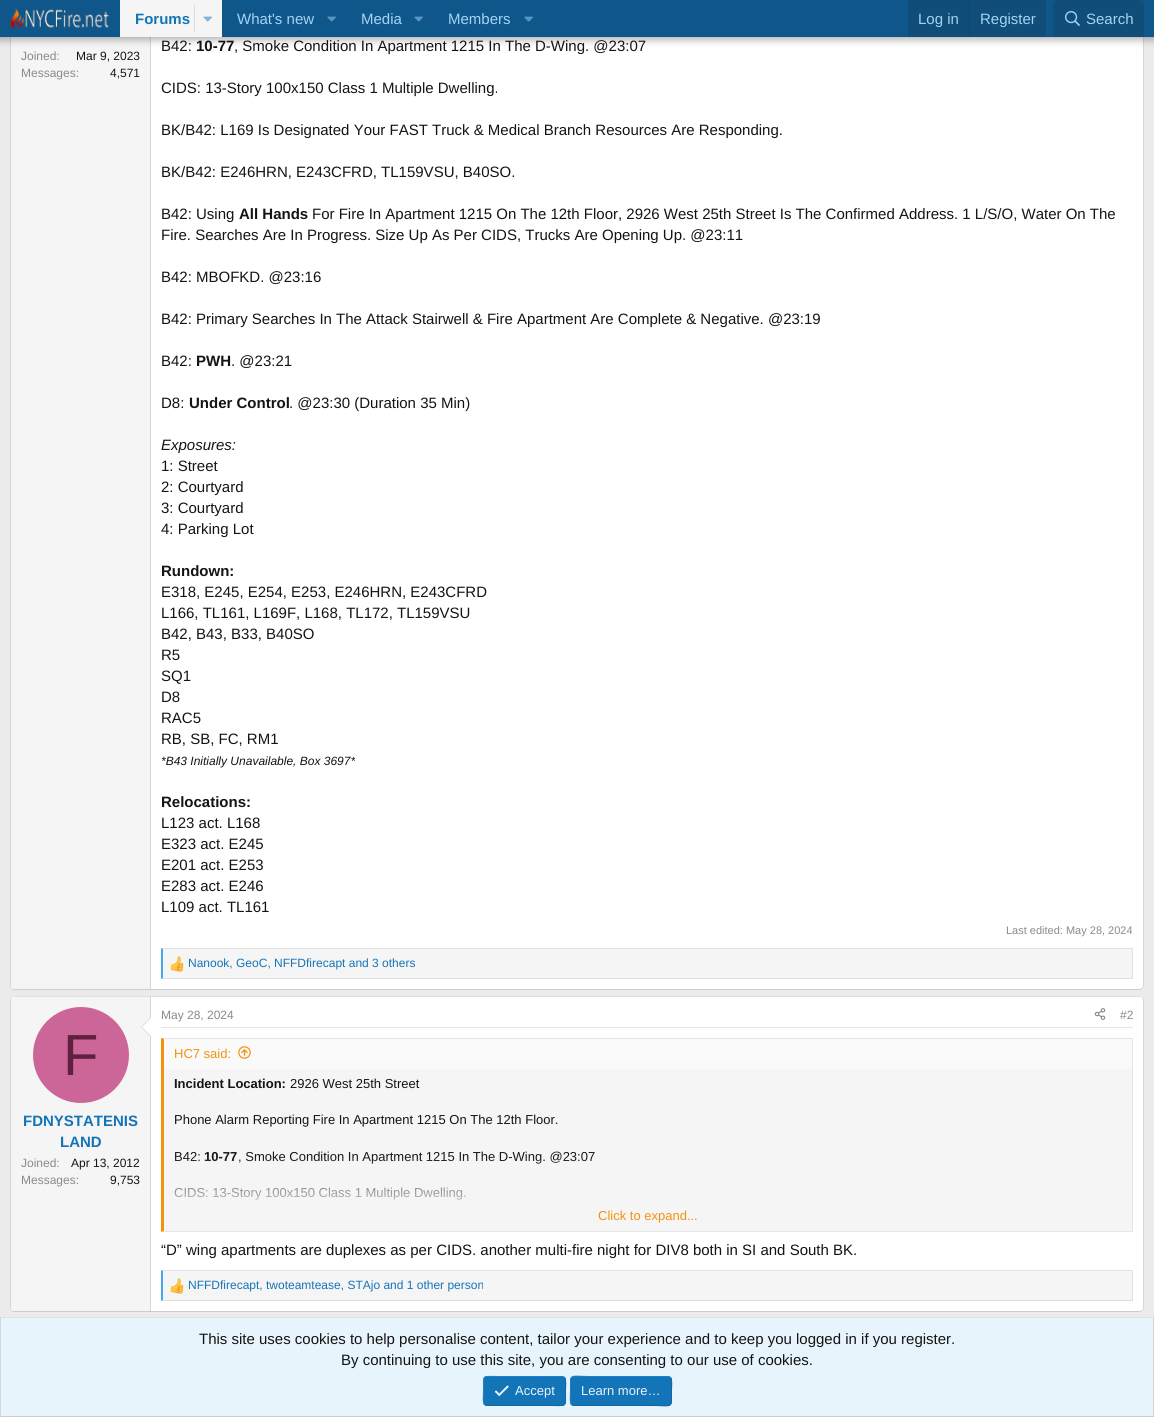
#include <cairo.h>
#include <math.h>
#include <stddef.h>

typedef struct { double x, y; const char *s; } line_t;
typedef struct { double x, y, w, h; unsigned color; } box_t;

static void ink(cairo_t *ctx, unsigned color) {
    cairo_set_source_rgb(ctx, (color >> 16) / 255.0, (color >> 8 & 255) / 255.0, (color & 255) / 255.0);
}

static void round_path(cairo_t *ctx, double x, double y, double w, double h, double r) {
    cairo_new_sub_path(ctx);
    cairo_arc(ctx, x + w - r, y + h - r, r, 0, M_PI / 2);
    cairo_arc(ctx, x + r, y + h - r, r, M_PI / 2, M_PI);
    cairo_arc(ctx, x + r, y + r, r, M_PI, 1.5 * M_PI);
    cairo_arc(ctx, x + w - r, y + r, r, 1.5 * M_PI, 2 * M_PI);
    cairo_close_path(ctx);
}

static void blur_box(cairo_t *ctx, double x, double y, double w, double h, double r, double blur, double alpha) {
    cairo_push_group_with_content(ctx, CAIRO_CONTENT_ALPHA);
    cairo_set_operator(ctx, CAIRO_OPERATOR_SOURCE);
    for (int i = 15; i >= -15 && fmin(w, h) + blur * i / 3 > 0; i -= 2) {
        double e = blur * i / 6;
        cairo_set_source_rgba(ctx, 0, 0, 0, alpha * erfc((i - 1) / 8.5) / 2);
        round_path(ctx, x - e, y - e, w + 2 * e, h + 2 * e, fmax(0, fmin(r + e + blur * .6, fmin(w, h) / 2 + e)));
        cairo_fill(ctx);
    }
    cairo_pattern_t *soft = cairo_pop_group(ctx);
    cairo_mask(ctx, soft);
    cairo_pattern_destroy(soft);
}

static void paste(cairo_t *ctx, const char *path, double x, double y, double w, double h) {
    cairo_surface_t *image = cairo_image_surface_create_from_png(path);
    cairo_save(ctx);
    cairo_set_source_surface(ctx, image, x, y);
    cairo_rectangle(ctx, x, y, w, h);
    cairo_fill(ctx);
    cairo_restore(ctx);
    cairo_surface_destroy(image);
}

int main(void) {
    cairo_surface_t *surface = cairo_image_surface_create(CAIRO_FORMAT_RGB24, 1154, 1417);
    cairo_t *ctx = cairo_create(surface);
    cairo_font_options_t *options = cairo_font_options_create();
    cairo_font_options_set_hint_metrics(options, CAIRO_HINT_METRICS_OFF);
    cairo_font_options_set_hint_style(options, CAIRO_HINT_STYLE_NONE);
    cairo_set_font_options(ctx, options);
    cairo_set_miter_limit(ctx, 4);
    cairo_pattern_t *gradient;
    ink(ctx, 0xEBEBEB);
    cairo_paint(ctx);
    ink(ctx, 0xFFFFFF);
    round_path(ctx, 10, -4, 1134, 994, 4);
    cairo_fill(ctx);
    cairo_new_path(ctx);
    cairo_move_to(ctx, 1142.5, -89.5);
    cairo_line_to(ctx, 1143.5, -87);
    cairo_line_to(ctx, 1143.5, 986);
    cairo_line_to(ctx, 1142.5, 988.5);
    ink(ctx, 0xD6D6D6);
    cairo_set_line_width(ctx, 1);
    cairo_stroke(ctx);
    cairo_new_path(ctx);
    cairo_move_to(ctx, 1142.5, 988.5);
    cairo_line_to(ctx, 1140, 989.5);
    cairo_line_to(ctx, 14, 989.5);
    cairo_line_to(ctx, 11.5, 988.5);
    ink(ctx, 0xCCCCCC);
    cairo_stroke(ctx);
    cairo_new_path(ctx);
    cairo_move_to(ctx, 11.5, 988.5);
    cairo_line_to(ctx, 10.5, 986);
    cairo_line_to(ctx, 10.5, -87);
    cairo_line_to(ctx, 11.5, -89.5);
    ink(ctx, 0xD6D6D6);
    cairo_stroke(ctx);
    ink(ctx, 0xF5F5F5);
    cairo_new_path(ctx);
    cairo_move_to(ctx, 14, -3);
    cairo_line_to(ctx, 151, -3);
    cairo_line_to(ctx, 151, 989);
    cairo_line_to(ctx, 14, 989);
    cairo_curve_to(ctx, 12.5, 989, 11, 987.5, 11, 986);
    cairo_line_to(ctx, 11, 0);
    cairo_curve_to(ctx, 11, -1.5, 12.5, -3, 14, -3);
    cairo_close_path(ctx);
    cairo_fill(ctx);
    ink(ctx, 0xD6D6D6);
    cairo_rectangle(ctx, 150, 37, 1, 952);
    cairo_fill(ctx);
    ink(ctx, 0x000000);
    blur_box(ctx, -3, -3, 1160, 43, 0, 4, 0.3);
    ink(ctx, 0x0F578A);
    cairo_rectangle(ctx, 0, 0, 1154, 37);
    cairo_fill(ctx);
    paste(ctx, "media/1.png", 10, 8, 100, 22);
    ink(ctx, 0xF5F5F5);
    cairo_rectangle(ctx, 120, 0, 102, 37);
    cairo_fill(ctx);
    cairo_select_font_face(ctx, "Liberation Sans", CAIRO_FONT_SLANT_NORMAL, CAIRO_FONT_WEIGHT_BOLD);
    cairo_set_font_size(ctx, 15);
    ink(ctx, 0x1474B8);
    cairo_move_to(ctx, 135, 24);
    cairo_show_text(ctx, "Forums");
    ink(ctx, 0xCEDFEB);
    cairo_rectangle(ctx, 194, 5, 1, 27);
    cairo_fill(ctx);
    paste(ctx, "media/2.png", 203, 16, 9, 6);
    cairo_select_font_face(ctx, "Liberation Sans", CAIRO_FONT_SLANT_NORMAL, CAIRO_FONT_WEIGHT_NORMAL);
    ink(ctx, 0xA3D4F5);
    cairo_move_to(ctx, 237, 24);
    cairo_show_text(ctx, "What's new");
    paste(ctx, "media/3.png", 327, 16, 9, 6);
    cairo_move_to(ctx, 361, 24);
    cairo_show_text(ctx, "Media");
    paste(ctx, "media/3.png", 414, 16, 9, 6);
    cairo_move_to(ctx, 448, 24);
    cairo_show_text(ctx, "Members");
    paste(ctx, "media/3.png", 524, 16, 9, 6);
    ink(ctx, 0x104D78);
    cairo_rectangle(ctx, 908, 0, 138, 37);
    cairo_fill(ctx);
    ink(ctx, 0xA3D4F5);
    cairo_move_to(ctx, 918, 24);
    cairo_show_text(ctx, "Log in");
    ink(ctx, 0x114469);
    cairo_rectangle(ctx, 969, 0, 1, 37);
    cairo_fill(ctx);
    ink(ctx, 0xA3D4F5);
    cairo_move_to(ctx, 980, 24);
    cairo_show_text(ctx, "Register");
    ink(ctx, 0x104D78);
    cairo_new_path(ctx);
    cairo_move_to(ctx, 1057, 0);
    cairo_line_to(ctx, 1140, 0);
    cairo_curve_to(ctx, 1142, 0, 1144, 2, 1144, 4);
    cairo_line_to(ctx, 1144, 37);
    cairo_line_to(ctx, 1053, 37);
    cairo_line_to(ctx, 1053, 4);
    cairo_curve_to(ctx, 1053, 2, 1055, 0, 1057, 0);
    cairo_close_path(ctx);
    cairo_fill(ctx);
    paste(ctx, "media/4.png", 1065, 11, 15, 15);
    ink(ctx, 0xA3D4F5);
    cairo_move_to(ctx, 1086, 24);
    cairo_show_text(ctx, "Search");
    cairo_set_font_size(ctx, 12);
    ink(ctx, 0x8A8A8A);
    cairo_move_to(ctx, 21, 60);
    cairo_show_text(ctx, "Joined:");
    ink(ctx, 0x141414);
    cairo_move_to(ctx, 76, 60);
    cairo_show_text(ctx, "Mar 9, 2023");
    ink(ctx, 0x8A8A8A);
    cairo_move_to(ctx, 21, 77);
    cairo_show_text(ctx, "Messages:");
    ink(ctx, 0x141414);
    cairo_move_to(ctx, 110, 77);
    cairo_show_text(ctx, "4,571");
    cairo_set_font_size(ctx, 15);
    cairo_move_to(ctx, 161, 51);
    cairo_show_text(ctx, "B42:");
    cairo_select_font_face(ctx, "Liberation Sans", CAIRO_FONT_SLANT_NORMAL, CAIRO_FONT_WEIGHT_BOLD);
    cairo_move_to(ctx, 196, 51);
    cairo_show_text(ctx, "10-77");
    cairo_select_font_face(ctx, "Liberation Sans", CAIRO_FONT_SLANT_NORMAL, CAIRO_FONT_WEIGHT_NORMAL);
    {
        static const line_t items[] = {
            {234, 51, ", Smoke Condition In Apartment 1215 In The D-Wing. @23:07"},
            {161, 93, "CIDS: 13-Story 100x150 Class 1 Multiple Dwelling."},
            {161, 135, "BK/B42: L169 Is Designated Your FAST Truck & Medical Branch Resources Are Responding."},
            {161, 177, "BK/B42: E246HRN, E243CFRD, TL159VSU, B40SO."},
            {161, 219, "B42: Using"},
        };
        for (size_t i = 0; i < sizeof items / sizeof *items; i++) {
            cairo_move_to(ctx, items[i].x, items[i].y);
            cairo_show_text(ctx, items[i].s);
        }
    }
    cairo_select_font_face(ctx, "Liberation Sans", CAIRO_FONT_SLANT_NORMAL, CAIRO_FONT_WEIGHT_BOLD);
    cairo_move_to(ctx, 239, 219);
    cairo_show_text(ctx, "All Hands");
    cairo_select_font_face(ctx, "Liberation Sans", CAIRO_FONT_SLANT_NORMAL, CAIRO_FONT_WEIGHT_NORMAL);
    {
        static const line_t items[] = {
            {312, 219, "For Fire In Apartment 1215 On The 12th Floor, 2926 West 25th Street Is The Confirmed Address. 1 L/S/O, Water On The"},
            {161, 240, "Fire. Searches Are In Progress. Size Up As Per CIDS, Trucks Are Opening Up. @23:11"},
            {161, 282, "B42: MBOFKD. @23:16"},
            {161, 324, "B42: Primary Searches In The Attack Stairwell & Fire Apartment Are Complete & Negative. @23:19"},
            {161, 366, "B42:"},
        };
        for (size_t i = 0; i < sizeof items / sizeof *items; i++) {
            cairo_move_to(ctx, items[i].x, items[i].y);
            cairo_show_text(ctx, items[i].s);
        }
    }
    cairo_select_font_face(ctx, "Liberation Sans", CAIRO_FONT_SLANT_NORMAL, CAIRO_FONT_WEIGHT_BOLD);
    cairo_move_to(ctx, 196, 366);
    cairo_show_text(ctx, "PWH");
    cairo_select_font_face(ctx, "Liberation Sans", CAIRO_FONT_SLANT_NORMAL, CAIRO_FONT_WEIGHT_NORMAL);
    cairo_move_to(ctx, 231, 366);
    cairo_show_text(ctx, ". @23:21");
    cairo_move_to(ctx, 161, 408);
    cairo_show_text(ctx, "D8:");
    cairo_select_font_face(ctx, "Liberation Sans", CAIRO_FONT_SLANT_NORMAL, CAIRO_FONT_WEIGHT_BOLD);
    cairo_move_to(ctx, 189, 408);
    cairo_show_text(ctx, "Under Control");
    cairo_select_font_face(ctx, "Liberation Sans", CAIRO_FONT_SLANT_NORMAL, CAIRO_FONT_WEIGHT_NORMAL);
    cairo_move_to(ctx, 289, 408);
    cairo_show_text(ctx, ". @23:30 (Duration 35 Min)");
    cairo_select_font_face(ctx, "Liberation Sans", CAIRO_FONT_SLANT_ITALIC, CAIRO_FONT_WEIGHT_NORMAL);
    cairo_move_to(ctx, 161, 450);
    cairo_show_text(ctx, "Exposures:");
    cairo_select_font_face(ctx, "Liberation Sans", CAIRO_FONT_SLANT_NORMAL, CAIRO_FONT_WEIGHT_NORMAL);
    {
        static const line_t items[] = {
            {161, 471, "1: Street"},
            {161, 492, "2: Courtyard"},
            {161, 513, "3: Courtyard"},
            {161, 534, "4: Parking Lot"},
        };
        for (size_t i = 0; i < sizeof items / sizeof *items; i++) {
            cairo_move_to(ctx, items[i].x, items[i].y);
            cairo_show_text(ctx, items[i].s);
        }
    }
    cairo_select_font_face(ctx, "Liberation Sans", CAIRO_FONT_SLANT_NORMAL, CAIRO_FONT_WEIGHT_BOLD);
    cairo_move_to(ctx, 161, 576);
    cairo_show_text(ctx, "Rundown:");
    cairo_select_font_face(ctx, "Liberation Sans", CAIRO_FONT_SLANT_NORMAL, CAIRO_FONT_WEIGHT_NORMAL);
    {
        static const line_t items[] = {
            {161, 597, "E318, E245, E254, E253, E246HRN, E243CFRD"},
            {161, 618, "L166, TL161, L169F, L168, TL172, TL159VSU"},
            {161, 639, "B42, B43, B33, B40SO"},
            {161, 660, "R5"},
            {161, 681, "SQ1"},
            {161, 702, "D8"},
            {161, 723, "RAC5"},
            {161, 744, "RB, SB, FC, RM1"},
        };
        for (size_t i = 0; i < sizeof items / sizeof *items; i++) {
            cairo_move_to(ctx, items[i].x, items[i].y);
            cairo_show_text(ctx, items[i].s);
        }
    }
    cairo_select_font_face(ctx, "Liberation Sans", CAIRO_FONT_SLANT_ITALIC, CAIRO_FONT_WEIGHT_NORMAL);
    cairo_set_font_size(ctx, 12);
    cairo_move_to(ctx, 161, 765);
    cairo_show_text(ctx, "*B43 Initially Unavailable, Box 3697*");
    cairo_select_font_face(ctx, "Liberation Sans", CAIRO_FONT_SLANT_NORMAL, CAIRO_FONT_WEIGHT_BOLD);
    cairo_set_font_size(ctx, 15);
    cairo_move_to(ctx, 161, 807);
    cairo_show_text(ctx, "Relocations:");
    cairo_select_font_face(ctx, "Liberation Sans", CAIRO_FONT_SLANT_NORMAL, CAIRO_FONT_WEIGHT_NORMAL);
    {
        static const line_t items[] = {
            {161, 828, "L123 act. L168"},
            {161, 849, "E323 act. E245"},
            {161, 870, "E201 act. E253"},
            {161, 891, "E283 act. E246"},
            {161, 912, "L109 act. TL161"},
        };
        for (size_t i = 0; i < sizeof items / sizeof *items; i++) {
            cairo_move_to(ctx, items[i].x, items[i].y);
            cairo_show_text(ctx, items[i].s);
        }
    }
    cairo_set_font_size(ctx, 11);
    ink(ctx, 0x8A8A8A);
    cairo_move_to(ctx, 1006, 934);
    cairo_show_text(ctx, "Last edited: May 28, 2024");
    ink(ctx, 0xF5F5F5);
    cairo_rectangle(ctx, 163, 949, 969, 29);
    cairo_fill(ctx);
    ink(ctx, 0xE0E0E0);
    cairo_new_path(ctx);
    cairo_move_to(ctx, 161, 948);
    cairo_line_to(ctx, 1133, 948);
    cairo_line_to(ctx, 1132, 949);
    cairo_line_to(ctx, 163, 949);
    cairo_close_path(ctx);
    cairo_fill(ctx);
    cairo_rectangle(ctx, 1132, 948, 1, 31);
    cairo_fill(ctx);
    cairo_new_path(ctx);
    cairo_move_to(ctx, 1133, 979);
    cairo_line_to(ctx, 161, 979);
    cairo_line_to(ctx, 163, 978);
    cairo_line_to(ctx, 1132, 978);
    cairo_close_path(ctx);
    cairo_fill(ctx);
    ink(ctx, 0x47A7EB);
    cairo_new_path(ctx);
    cairo_move_to(ctx, 161, 979);
    cairo_line_to(ctx, 161, 948);
    cairo_line_to(ctx, 163, 949);
    cairo_line_to(ctx, 163, 978);
    cairo_close_path(ctx);
    cairo_fill(ctx);
    paste(ctx, "media/5.png", 170, 956, 14, 16);
    cairo_set_font_size(ctx, 12);
    ink(ctx, 0x1474B8);
    cairo_move_to(ctx, 188, 967);
    cairo_show_text(ctx, "Nanook, GeoC, NFFDfirecapt and 3 others");
    ink(ctx, 0xFFFFFF);
    round_path(ctx, 10, 996, 1134, 316, 4);
    cairo_fill(ctx);
    cairo_new_path(ctx);
    cairo_move_to(ctx, 11.5, 997.5);
    cairo_line_to(ctx, 14, 996.5);
    cairo_line_to(ctx, 1140, 996.5);
    cairo_line_to(ctx, 1142.5, 997.5);
    ink(ctx, 0xE0E0E0);
    cairo_stroke(ctx);
    cairo_new_path(ctx);
    cairo_move_to(ctx, 1142.5, 997.5);
    cairo_line_to(ctx, 1143.5, 1000);
    cairo_line_to(ctx, 1143.5, 1308);
    cairo_line_to(ctx, 1142.5, 1310.5);
    ink(ctx, 0xD6D6D6);
    cairo_stroke(ctx);
    cairo_new_path(ctx);
    cairo_move_to(ctx, 1142.5, 1310.5);
    cairo_line_to(ctx, 1140, 1311.5);
    cairo_line_to(ctx, 14, 1311.5);
    cairo_line_to(ctx, 11.5, 1310.5);
    ink(ctx, 0xCCCCCC);
    cairo_stroke(ctx);
    cairo_new_path(ctx);
    cairo_move_to(ctx, 11.5, 1310.5);
    cairo_line_to(ctx, 10.5, 1308);
    cairo_line_to(ctx, 10.5, 1000);
    cairo_line_to(ctx, 11.5, 997.5);
    ink(ctx, 0xD6D6D6);
    cairo_stroke(ctx);
    ink(ctx, 0xF5F5F5);
    cairo_new_path(ctx);
    cairo_move_to(ctx, 14, 997);
    cairo_line_to(ctx, 151, 997);
    cairo_line_to(ctx, 151, 1311);
    cairo_line_to(ctx, 14, 1311);
    cairo_curve_to(ctx, 12.5, 1311, 11, 1309.5, 11, 1308);
    cairo_line_to(ctx, 11, 1000);
    cairo_curve_to(ctx, 11, 998.5, 12.5, 997, 14, 997);
    cairo_close_path(ctx);
    cairo_fill(ctx);
    ink(ctx, 0xD6D6D6);
    cairo_rectangle(ctx, 150, 997, 1, 314);
    cairo_fill(ctx);
    cairo_new_path(ctx);
    cairo_move_to(ctx, 151, 1017);
    cairo_line_to(ctx, 151, 1037);
    cairo_line_to(ctx, 141, 1027);
    cairo_close_path(ctx);
    cairo_fill(ctx);
    ink(ctx, 0xFFFFFF);
    cairo_new_path(ctx);
    cairo_move_to(ctx, 151, 1018);
    cairo_line_to(ctx, 151, 1036);
    cairo_line_to(ctx, 142, 1027);
    cairo_close_path(ctx);
    cairo_fill(ctx);
    ink(ctx, 0xCC6699);
    cairo_arc(ctx, 81, 1055, 48, 0, 2 * M_PI);
    cairo_fill(ctx);
    cairo_set_font_size(ctx, 58);
    ink(ctx, 0x60203F);
    cairo_move_to(ctx, 63, 1075);
    cairo_show_text(ctx, "F");
    cairo_select_font_face(ctx, "Liberation Sans", CAIRO_FONT_SLANT_NORMAL, CAIRO_FONT_WEIGHT_BOLD);
    cairo_set_font_size(ctx, 15);
    ink(ctx, 0x1474B8);
    cairo_move_to(ctx, 23, 1126);
    cairo_show_text(ctx, "FDNYSTATENIS");
    cairo_move_to(ctx, 60, 1147);
    cairo_show_text(ctx, "LAND");
    cairo_select_font_face(ctx, "Liberation Sans", CAIRO_FONT_SLANT_NORMAL, CAIRO_FONT_WEIGHT_NORMAL);
    cairo_set_font_size(ctx, 12);
    ink(ctx, 0x8A8A8A);
    cairo_move_to(ctx, 21, 1167);
    cairo_show_text(ctx, "Joined:");
    ink(ctx, 0x141414);
    cairo_move_to(ctx, 71, 1167);
    cairo_show_text(ctx, "Apr 13, 2012");
    ink(ctx, 0x8A8A8A);
    cairo_move_to(ctx, 21, 1184);
    cairo_show_text(ctx, "Messages:");
    ink(ctx, 0x141414);
    cairo_move_to(ctx, 110, 1184);
    cairo_show_text(ctx, "9,753");
    ink(ctx, 0xE5E5E5);
    cairo_rectangle(ctx, 161, 1027, 972, 1);
    cairo_fill(ctx);
    ink(ctx, 0x8A8A8A);
    cairo_move_to(ctx, 161, 1019);
    cairo_show_text(ctx, "May 28, 2024");
    paste(ctx, "media/6.png", 1094, 1008, 12, 12);
    cairo_move_to(ctx, 1120, 1019);
    cairo_show_text(ctx, "#2");
    ink(ctx, 0xF5F5F5);
    cairo_rectangle(ctx, 164, 1069, 968, 147);
    cairo_fill(ctx);
    ink(ctx, 0xE5E5E5);
    cairo_new_path(ctx);
    cairo_move_to(ctx, 161, 1038);
    cairo_line_to(ctx, 1133, 1038);
    cairo_line_to(ctx, 1132, 1039);
    cairo_line_to(ctx, 164, 1039);
    cairo_close_path(ctx);
    cairo_fill(ctx);
    cairo_rectangle(ctx, 1132, 1038, 1, 194);
    cairo_fill(ctx);
    cairo_new_path(ctx);
    cairo_move_to(ctx, 1133, 1232);
    cairo_line_to(ctx, 161, 1232);
    cairo_line_to(ctx, 164, 1231);
    cairo_line_to(ctx, 1132, 1231);
    cairo_close_path(ctx);
    cairo_fill(ctx);
    ink(ctx, 0xF2930D);
    cairo_new_path(ctx);
    cairo_move_to(ctx, 161, 1232);
    cairo_line_to(ctx, 161, 1038);
    cairo_line_to(ctx, 164, 1039);
    cairo_line_to(ctx, 164, 1231);
    cairo_close_path(ctx);
    cairo_fill(ctx);
    ink(ctx, 0xFAFAFA);
    cairo_rectangle(ctx, 164, 1039, 968, 30);
    cairo_fill(ctx);
    cairo_set_font_size(ctx, 13);
    ink(ctx, 0xF2930D);
    cairo_move_to(ctx, 174, 1058);
    cairo_show_text(ctx, "HC7 said:");
    paste(ctx, "media/7.png", 238, 1046, 13, 13);
    cairo_select_font_face(ctx, "Liberation Sans", CAIRO_FONT_SLANT_NORMAL, CAIRO_FONT_WEIGHT_BOLD);
    ink(ctx, 0x141414);
    cairo_move_to(ctx, 174, 1088);
    cairo_show_text(ctx, "Incident Location:");
    cairo_select_font_face(ctx, "Liberation Sans", CAIRO_FONT_SLANT_NORMAL, CAIRO_FONT_WEIGHT_NORMAL);
    {
        static const line_t items[] = {
            {290, 1088, "2926 West 25th Street"},
            {174, 1124, "Phone Alarm Reporting Fire In Apartment 1215 On The 12th Floor."},
            {174, 1161, "B42:"},
        };
        for (size_t i = 0; i < sizeof items / sizeof *items; i++) {
            cairo_move_to(ctx, items[i].x, items[i].y);
            cairo_show_text(ctx, items[i].s);
        }
    }
    cairo_select_font_face(ctx, "Liberation Sans", CAIRO_FONT_SLANT_NORMAL, CAIRO_FONT_WEIGHT_BOLD);
    cairo_move_to(ctx, 204, 1161);
    cairo_show_text(ctx, "10-77");
    cairo_select_font_face(ctx, "Liberation Sans", CAIRO_FONT_SLANT_NORMAL, CAIRO_FONT_WEIGHT_NORMAL);
    cairo_move_to(ctx, 238, 1161);
    cairo_show_text(ctx, ", Smoke Condition In Apartment 1215 In The D-Wing. @23:07");
    cairo_move_to(ctx, 174, 1197);
    cairo_show_text(ctx, "CIDS: 13-Story 100x150 Class 1 Multiple Dwelling.");
    gradient = cairo_pattern_create_linear(648, 1156, 648, 1231);
    cairo_pattern_add_color_stop_rgba(gradient, 0, 0.961, 0.961, 0.961, 0);
    cairo_pattern_add_color_stop_rgba(gradient, 0.8, 0.961, 0.961, 0.961, 1);
    cairo_set_source(ctx, gradient);
    cairo_pattern_destroy(gradient);
    cairo_rectangle(ctx, 164, 1157, 968, 74);
    cairo_fill(ctx);
    ink(ctx, 0xF2930D);
    cairo_move_to(ctx, 598, 1220);
    cairo_show_text(ctx, "Click to expand...");
    cairo_set_font_size(ctx, 15);
    ink(ctx, 0x141414);
    cairo_move_to(ctx, 161, 1255);
    cairo_show_text(ctx, "“D” wing apartments are duplexes as per CIDS. another multi-fire night for DIV8 both in SI and South BK.");
    ink(ctx, 0xF5F5F5);
    cairo_rectangle(ctx, 163, 1271, 969, 29);
    cairo_fill(ctx);
    ink(ctx, 0xE0E0E0);
    cairo_new_path(ctx);
    cairo_move_to(ctx, 161, 1270);
    cairo_line_to(ctx, 1133, 1270);
    cairo_line_to(ctx, 1132, 1271);
    cairo_line_to(ctx, 163, 1271);
    cairo_close_path(ctx);
    cairo_fill(ctx);
    cairo_rectangle(ctx, 1132, 1270, 1, 31);
    cairo_fill(ctx);
    cairo_new_path(ctx);
    cairo_move_to(ctx, 1133, 1301);
    cairo_line_to(ctx, 161, 1301);
    cairo_line_to(ctx, 163, 1300);
    cairo_line_to(ctx, 1132, 1300);
    cairo_close_path(ctx);
    cairo_fill(ctx);
    ink(ctx, 0x47A7EB);
    cairo_new_path(ctx);
    cairo_move_to(ctx, 161, 1301);
    cairo_line_to(ctx, 161, 1270);
    cairo_line_to(ctx, 163, 1271);
    cairo_line_to(ctx, 163, 1300);
    cairo_close_path(ctx);
    cairo_fill(ctx);
    paste(ctx, "media/5.png", 170, 1278, 14, 16);
    cairo_set_font_size(ctx, 12);
    ink(ctx, 0x1474B8);
    cairo_move_to(ctx, 188, 1289);
    cairo_show_text(ctx, "NFFDfirecapt, twoteamtease, STAjo and 1 other person");
    {
        static const box_t items[] = {
            {1, 1318, 1152, 98, 0xE8F4FC},
            {0, 1317, 1154, 1, 0xE0E0E0},
            {1153, 1317, 1, 100, 0xD6D6D6},
            {0, 1416, 1154, 1, 0xCCCCCC},
            {0, 1317, 1, 100, 0xD6D6D6},
        };
        for (size_t i = 0; i < sizeof items / sizeof *items; i++) {
            ink(ctx, items[i].color);
            cairo_rectangle(ctx, items[i].x, items[i].y, items[i].w, items[i].h);
            cairo_fill(ctx);
        }
    }
    cairo_set_font_size(ctx, 15);
    ink(ctx, 0x141414);
    cairo_move_to(ctx, 199, 1344);
    cairo_show_text(ctx, "This site uses cookies to help personalise content, tailor your experience and to keep you logged in if you register.");
    cairo_move_to(ctx, 341, 1365);
    cairo_show_text(ctx, "By continuing to use this site, you are consenting to our use of cookies.");
    ink(ctx, 0x1474B8);
    round_path(ctx, 483, 1376, 83, 30, 4);
    cairo_fill(ctx);
    cairo_new_path(ctx);
    cairo_move_to(ctx, 564.5, 1377.5);
    cairo_curve_to(ctx, 566.5, 1379.5, 565.5, 1388, 565.5, 1391);
    cairo_curve_to(ctx, 565.5, 1408, 567.5, 1405.5, 549.5, 1405.5);
    cairo_line_to(ctx, 487, 1405.5);
    cairo_line_to(ctx, 484.5, 1404.5);
    ink(ctx, 0x1265A1);
    cairo_stroke(ctx);
    cairo_new_path(ctx);
    cairo_move_to(ctx, 484.5, 1404.5);
    cairo_curve_to(ctx, 482.5, 1402.5, 483.5, 1394, 483.5, 1391);
    cairo_curve_to(ctx, 483.5, 1374, 481.5, 1376.5, 499.5, 1376.5);
    cairo_line_to(ctx, 562, 1376.5);
    cairo_line_to(ctx, 564.5, 1377.5);
    ink(ctx, 0x1782CF);
    cairo_stroke(ctx);
    paste(ctx, "media/8.png", 494, 1385, 15, 12);
    cairo_set_font_size(ctx, 13);
    ink(ctx, 0xE8F4FC);
    cairo_move_to(ctx, 515, 1395);
    cairo_show_text(ctx, "Accept");
    ink(ctx, 0x1474B8);
    round_path(ctx, 570, 1376, 102, 30, 4);
    cairo_fill(ctx);
    cairo_new_path(ctx);
    cairo_move_to(ctx, 670.5, 1377.5);
    cairo_curve_to(ctx, 672.5, 1379.5, 671.5, 1388, 671.5, 1391);
    cairo_curve_to(ctx, 671.5, 1409.5, 673, 1405.5, 652.5, 1405.5);
    cairo_line_to(ctx, 574, 1405.5);
    cairo_line_to(ctx, 571.5, 1404.5);
    ink(ctx, 0x1265A1);
    cairo_stroke(ctx);
    cairo_new_path(ctx);
    cairo_move_to(ctx, 571.5, 1404.5);
    cairo_curve_to(ctx, 569.5, 1402.5, 570.5, 1394, 570.5, 1391);
    cairo_curve_to(ctx, 570.5, 1372.5, 569, 1376.5, 589.5, 1376.5);
    cairo_line_to(ctx, 668, 1376.5);
    cairo_line_to(ctx, 670.5, 1377.5);
    ink(ctx, 0x1782CF);
    cairo_stroke(ctx);
    ink(ctx, 0xE8F4FC);
    cairo_move_to(ctx, 581, 1395);
    cairo_show_text(ctx, "Learn more…");
    cairo_surface_write_to_png(surface, "image.png");
    cairo_font_options_destroy(options);
    cairo_destroy(ctx);
    cairo_surface_destroy(surface);
    return 0;
}
